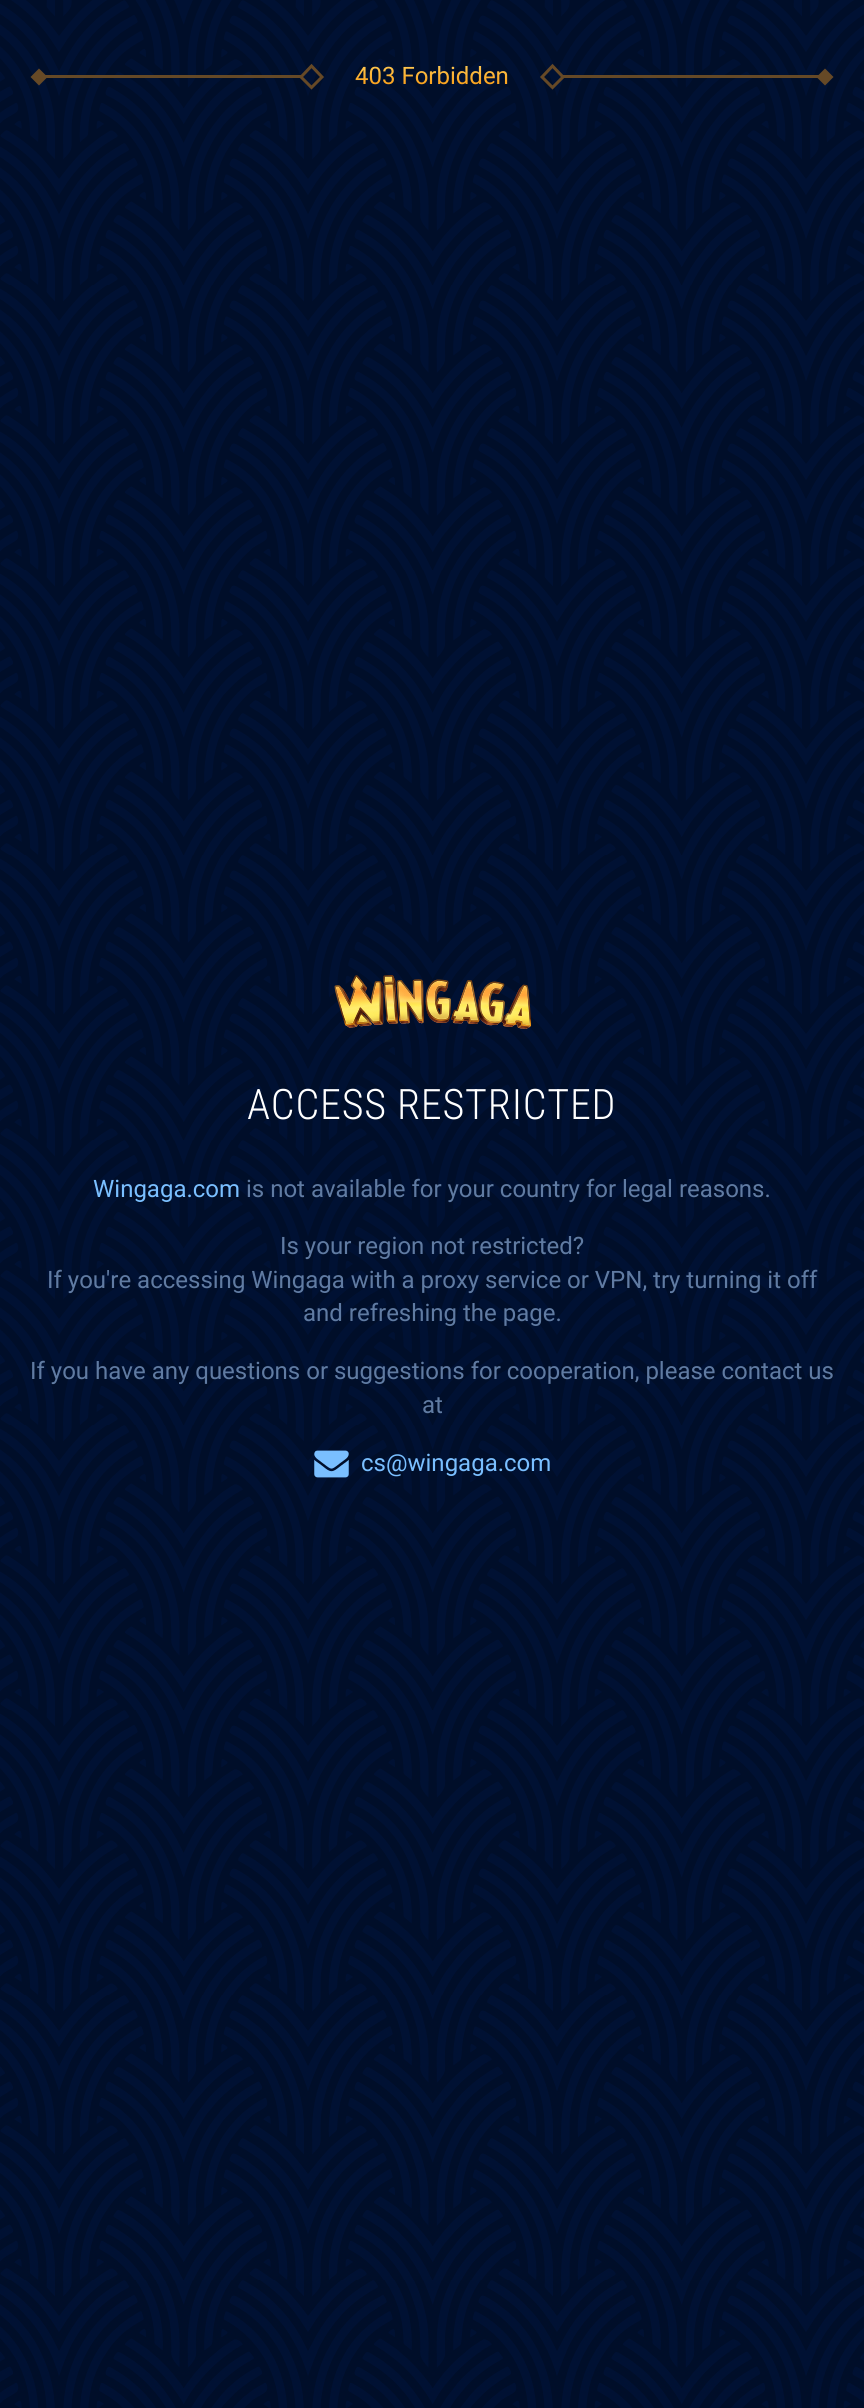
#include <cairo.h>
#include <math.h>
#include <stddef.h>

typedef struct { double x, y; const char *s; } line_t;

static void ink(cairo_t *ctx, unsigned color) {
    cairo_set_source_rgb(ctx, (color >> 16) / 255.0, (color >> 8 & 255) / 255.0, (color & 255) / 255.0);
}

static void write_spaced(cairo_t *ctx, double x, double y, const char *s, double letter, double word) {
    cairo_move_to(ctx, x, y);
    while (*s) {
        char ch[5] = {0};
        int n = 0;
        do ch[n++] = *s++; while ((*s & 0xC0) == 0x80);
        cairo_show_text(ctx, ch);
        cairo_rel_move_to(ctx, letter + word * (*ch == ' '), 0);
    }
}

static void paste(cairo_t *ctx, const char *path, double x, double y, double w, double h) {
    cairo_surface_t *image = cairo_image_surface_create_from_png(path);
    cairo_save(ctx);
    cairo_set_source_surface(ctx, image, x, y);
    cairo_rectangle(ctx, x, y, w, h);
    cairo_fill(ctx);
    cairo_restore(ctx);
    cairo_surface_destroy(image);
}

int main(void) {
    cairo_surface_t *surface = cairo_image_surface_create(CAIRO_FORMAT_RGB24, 864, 2408);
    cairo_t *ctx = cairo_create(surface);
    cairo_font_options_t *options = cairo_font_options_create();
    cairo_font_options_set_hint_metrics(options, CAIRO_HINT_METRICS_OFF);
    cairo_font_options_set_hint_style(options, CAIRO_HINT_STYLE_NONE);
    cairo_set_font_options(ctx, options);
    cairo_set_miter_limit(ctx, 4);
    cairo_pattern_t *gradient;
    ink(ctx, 0x001133);
    cairo_paint(ctx);
    paste(ctx, "media/1.png", 0, 0, 864, 2408);
    ink(ctx, 0x664926);
    cairo_rectangle(ctx, 45, 75, 258, 3);
    cairo_fill(ctx);
    cairo_new_path(ctx);
    cairo_move_to(ctx, 39, 68.5);
    cairo_line_to(ctx, 30.5, 77);
    cairo_line_to(ctx, 39, 85.5);
    cairo_line_to(ctx, 47.5, 77);
    cairo_close_path(ctx);
    cairo_fill(ctx);
    cairo_new_path(ctx);
    cairo_move_to(ctx, 311.5, 66);
    cairo_line_to(ctx, 301, 77);
    cairo_line_to(ctx, 311.5, 87.5);
    cairo_line_to(ctx, 322, 77);
    cairo_close_path(ctx);
    cairo_set_line_width(ctx, 3);
    cairo_stroke(ctx);
    cairo_select_font_face(ctx, "Roboto", CAIRO_FONT_SLANT_NORMAL, CAIRO_FONT_WEIGHT_NORMAL);
    cairo_set_font_size(ctx, 24);
    gradient = cairo_pattern_create_linear(432, 60, 432, 94);
    cairo_pattern_add_color_stop_rgba(gradient, 0, 1, 0.827, 0.38, 1);
    cairo_pattern_add_color_stop_rgba(gradient, 1, 0.973, 0.553, 0.004, 1);
    cairo_set_source(ctx, gradient);
    cairo_pattern_destroy(gradient);
    cairo_move_to(ctx, 355, 84);
    cairo_show_text(ctx, "403 Forbidden");
    ink(ctx, 0x664926);
    cairo_rectangle(ctx, 561, 75, 258, 3);
    cairo_fill(ctx);
    cairo_new_path(ctx);
    cairo_move_to(ctx, 552.5, 66);
    cairo_line_to(ctx, 563, 77);
    cairo_line_to(ctx, 552.5, 87.5);
    cairo_line_to(ctx, 542, 77);
    cairo_close_path(ctx);
    cairo_stroke(ctx);
    cairo_new_path(ctx);
    cairo_move_to(ctx, 825, 68.5);
    cairo_line_to(ctx, 833.5, 77);
    cairo_line_to(ctx, 825, 85.5);
    cairo_line_to(ctx, 816.5, 77);
    cairo_close_path(ctx);
    cairo_fill(ctx);
    paste(ctx, "media/2.png", 334, 975, 198, 54);
    cairo_select_font_face(ctx, "Roboto Condensed Light", CAIRO_FONT_SLANT_NORMAL, CAIRO_FONT_WEIGHT_NORMAL);
    cairo_set_font_size(ctx, 42);
    ink(ctx, 0xFFFFFF);
    write_spaced(ctx, 247, 1119, "ACCESS RESTRICTED", 0.8, 0);
    cairo_select_font_face(ctx, "Roboto", CAIRO_FONT_SLANT_NORMAL, CAIRO_FONT_WEIGHT_NORMAL);
    cairo_set_font_size(ctx, 24);
    ink(ctx, 0x7ABFFF);
    cairo_move_to(ctx, 93, 1197);
    cairo_show_text(ctx, "Wingaga.com");
    ink(ctx, 0x607BA2);
    {
        static const line_t items[] = {
            {246, 1197, "is not available for your country for legal reasons."},
            {280, 1254, "Is your region not restricted?"},
            {47, 1288, "If you're accessing Wingaga with a proxy service or VPN, try turning it off"},
            {303, 1321, "and refreshing the page."},
            {30, 1379, "If you have any questions or suggestions for cooperation, please contact us"},
            {422, 1413, "at"},
        };
        for (size_t i = 0; i < sizeof items / sizeof *items; i++) {
            cairo_move_to(ctx, items[i].x, items[i].y);
            cairo_show_text(ctx, items[i].s);
        }
    }
    paste(ctx, "media/3.png", 314, 1450, 35, 28);
    ink(ctx, 0x7ABFFF);
    cairo_move_to(ctx, 361, 1471);
    cairo_show_text(ctx, "cs@wingaga.com");
    cairo_surface_write_to_png(surface, "image.png");
    cairo_font_options_destroy(options);
    cairo_destroy(ctx);
    cairo_surface_destroy(surface);
    return 0;
}
